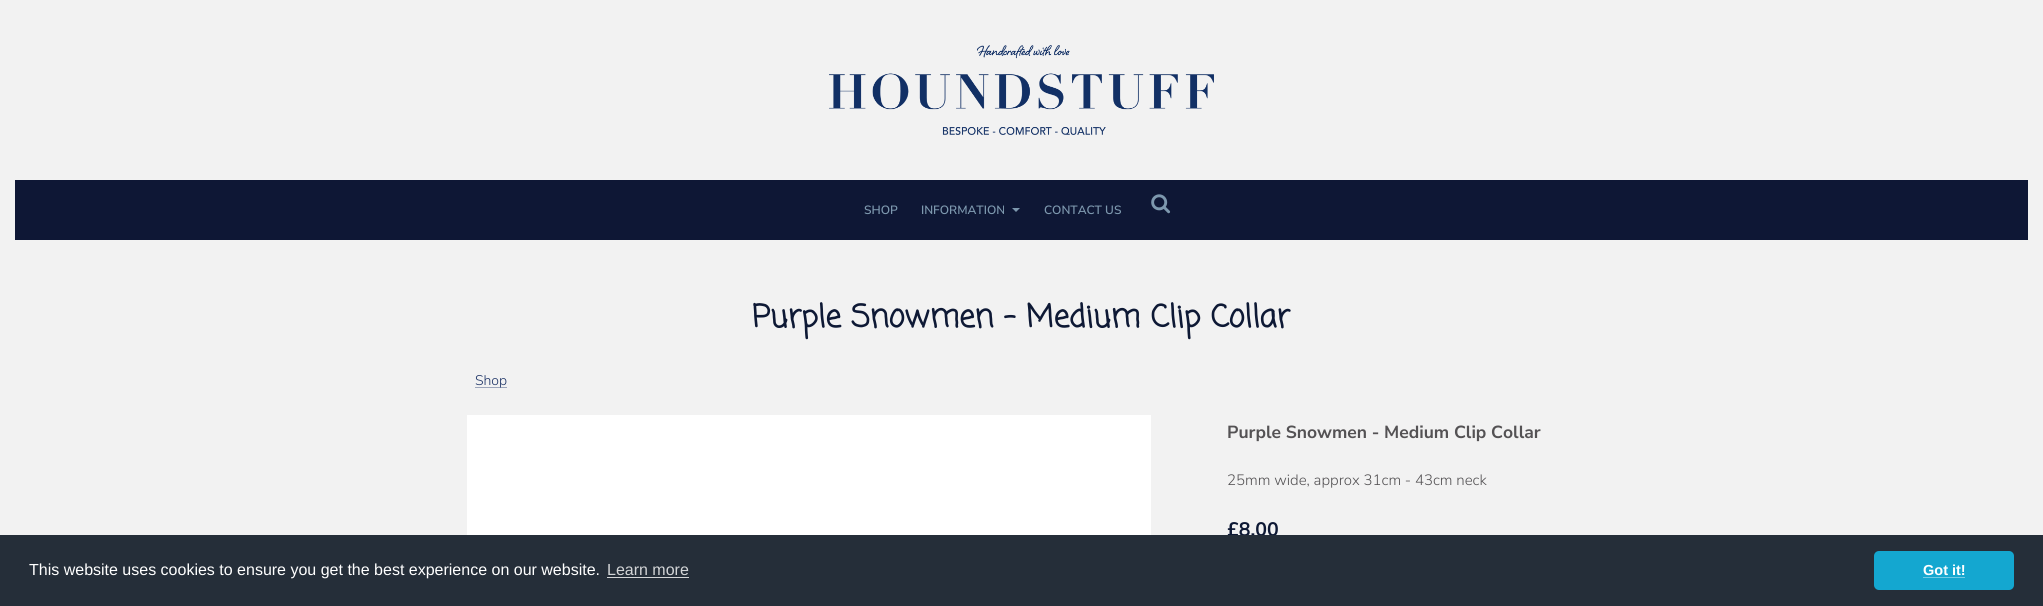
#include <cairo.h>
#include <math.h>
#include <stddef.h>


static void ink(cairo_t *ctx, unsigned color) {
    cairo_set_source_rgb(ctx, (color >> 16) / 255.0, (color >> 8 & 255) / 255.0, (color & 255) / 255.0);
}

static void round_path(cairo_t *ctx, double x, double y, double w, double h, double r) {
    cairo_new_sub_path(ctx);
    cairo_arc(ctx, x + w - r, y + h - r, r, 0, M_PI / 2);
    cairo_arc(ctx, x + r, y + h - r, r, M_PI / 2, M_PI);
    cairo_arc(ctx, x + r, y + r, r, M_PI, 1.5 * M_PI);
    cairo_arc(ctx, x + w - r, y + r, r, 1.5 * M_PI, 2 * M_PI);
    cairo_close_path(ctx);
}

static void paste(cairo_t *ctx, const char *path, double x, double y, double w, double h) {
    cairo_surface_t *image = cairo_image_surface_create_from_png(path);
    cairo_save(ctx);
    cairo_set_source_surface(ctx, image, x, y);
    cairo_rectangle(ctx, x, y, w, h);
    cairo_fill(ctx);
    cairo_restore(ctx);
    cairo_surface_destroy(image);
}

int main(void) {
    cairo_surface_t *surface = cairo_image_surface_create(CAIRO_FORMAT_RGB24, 2043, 606);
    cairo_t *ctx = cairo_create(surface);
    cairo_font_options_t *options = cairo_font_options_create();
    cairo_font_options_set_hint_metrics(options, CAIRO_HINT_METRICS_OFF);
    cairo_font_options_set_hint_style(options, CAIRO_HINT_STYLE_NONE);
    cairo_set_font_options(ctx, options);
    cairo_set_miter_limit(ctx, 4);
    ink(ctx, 0xF2F2F2);
    cairo_paint(ctx);
    paste(ctx, "media/1.png", 829, 45, 385, 90);
    ink(ctx, 0x0E1735);
    cairo_rectangle(ctx, 15, 180, 2013, 60);
    cairo_fill(ctx);
    cairo_select_font_face(ctx, "Nunito Sans SemiBold", CAIRO_FONT_SLANT_NORMAL, CAIRO_FONT_WEIGHT_NORMAL);
    cairo_set_font_size(ctx, 12);
    ink(ctx, 0x7D98AE);
    cairo_move_to(ctx, 864, 214);
    cairo_show_text(ctx, "SHOP");
    cairo_move_to(ctx, 921, 214);
    cairo_show_text(ctx, "INFORMATION");
    cairo_new_path(ctx);
    cairo_move_to(ctx, 1012, 208);
    cairo_line_to(ctx, 1020, 208);
    cairo_line_to(ctx, 1016, 212);
    cairo_close_path(ctx);
    cairo_fill(ctx);
    cairo_move_to(ctx, 1044, 214);
    cairo_show_text(ctx, "CONTACT US");
    paste(ctx, "media/2.png", 1151, 194, 20, 20);
    cairo_select_font_face(ctx, "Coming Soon", CAIRO_FONT_SLANT_NORMAL, CAIRO_FONT_WEIGHT_BOLD);
    cairo_set_font_size(ctx, 31.1);
    ink(ctx, 0x0E1935);
    cairo_move_to(ctx, 752, 327);
    cairo_show_text(ctx, "Purple Snowmen - Medium Clip Collar");
    ink(ctx, 0x9CA5BA);
    cairo_rectangle(ctx, 475, 387, 32, 1);
    cairo_fill(ctx);
    cairo_select_font_face(ctx, "Nunito Sans Light", CAIRO_FONT_SLANT_NORMAL, CAIRO_FONT_WEIGHT_NORMAL);
    cairo_set_font_size(ctx, 14);
    ink(ctx, 0x1C3265);
    cairo_move_to(ctx, 475, 385);
    cairo_show_text(ctx, "Shop");
    paste(ctx, "media/3.png", 467, 415, 684, 120);
    cairo_select_font_face(ctx, "Nunito Sans", CAIRO_FONT_SLANT_NORMAL, CAIRO_FONT_WEIGHT_BOLD);
    cairo_set_font_size(ctx, 17.5);
    ink(ctx, 0x545254);
    cairo_move_to(ctx, 1227, 438);
    cairo_show_text(ctx, "Purple Snowmen - Medium Clip Collar");
    cairo_select_font_face(ctx, "Nunito Sans Light", CAIRO_FONT_SLANT_NORMAL, CAIRO_FONT_WEIGHT_NORMAL);
    cairo_set_font_size(ctx, 15);
    cairo_move_to(ctx, 1227, 485);
    cairo_show_text(ctx, "25mm wide, approx 31cm - 43cm neck");
    cairo_select_font_face(ctx, "Nunito Sans", CAIRO_FONT_SLANT_NORMAL, CAIRO_FONT_WEIGHT_BOLD);
    cairo_set_font_size(ctx, 19.5);
    ink(ctx, 0x0E1935);
    cairo_move_to(ctx, 1227, 536);
    cairo_show_text(ctx, "£8.00");
    ink(ctx, 0x252E39);
    cairo_rectangle(ctx, 0, 535, 2043, 71);
    cairo_fill(ctx);
    cairo_select_font_face(ctx, "Liberation Sans", CAIRO_FONT_SLANT_NORMAL, CAIRO_FONT_WEIGHT_NORMAL);
    cairo_set_font_size(ctx, 16);
    ink(ctx, 0xFFFFFF);
    cairo_move_to(ctx, 29, 575);
    cairo_show_text(ctx, "This website uses cookies to ensure you get the best experience on our website.");
    ink(ctx, 0xD3D5D7);
    cairo_move_to(ctx, 607, 575);
    cairo_show_text(ctx, "Learn more");
    cairo_rectangle(ctx, 607, 577, 82, 1);
    cairo_fill(ctx);
    ink(ctx, 0x14A7D0);
    round_path(ctx, 1874, 551, 140, 39, 5);
    cairo_fill(ctx);
    cairo_select_font_face(ctx, "Liberation Sans", CAIRO_FONT_SLANT_NORMAL, CAIRO_FONT_WEIGHT_BOLD);
    cairo_set_font_size(ctx, 14.5);
    ink(ctx, 0xFFFFFF);
    cairo_move_to(ctx, 1923, 575);
    cairo_show_text(ctx, "Got it!");
    ink(ctx, 0x72CAE3);
    cairo_rectangle(ctx, 1923, 577, 42, 1);
    cairo_fill(ctx);
    cairo_surface_write_to_png(surface, "image.png");
    cairo_font_options_destroy(options);
    cairo_destroy(ctx);
    cairo_surface_destroy(surface);
    return 0;
}
